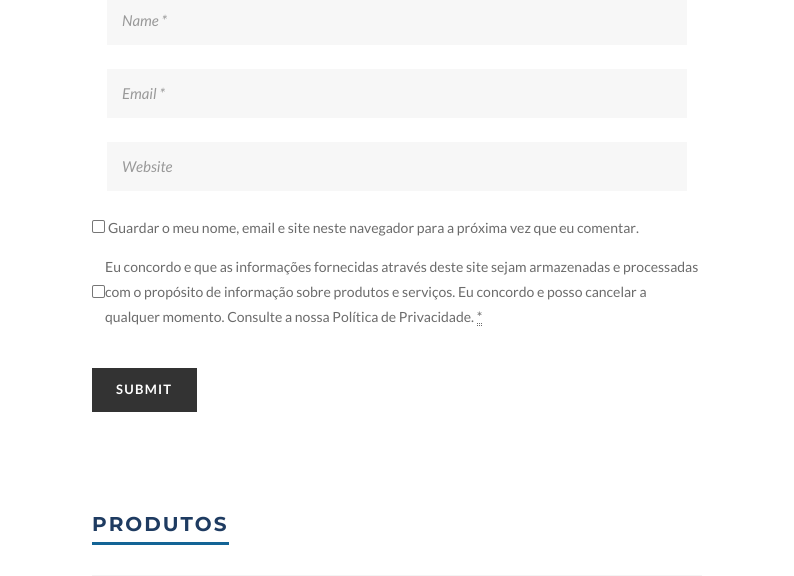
#include <cairo.h>
#include <math.h>
#include <stddef.h>

typedef struct { double x, y; const char *s; } line_t;

static void ink(cairo_t *ctx, unsigned color) {
    cairo_set_source_rgb(ctx, (color >> 16) / 255.0, (color >> 8 & 255) / 255.0, (color & 255) / 255.0);
}

static void write_spaced(cairo_t *ctx, double x, double y, const char *s, double letter, double word) {
    cairo_move_to(ctx, x, y);
    while (*s) {
        char ch[5] = {0};
        int n = 0;
        do ch[n++] = *s++; while ((*s & 0xC0) == 0x80);
        cairo_show_text(ctx, ch);
        cairo_rel_move_to(ctx, letter + word * (*ch == ' '), 0);
    }
}

static void round_path(cairo_t *ctx, double x, double y, double w, double h, double r) {
    cairo_new_sub_path(ctx);
    cairo_arc(ctx, x + w - r, y + h - r, r, 0, M_PI / 2);
    cairo_arc(ctx, x + r, y + h - r, r, M_PI / 2, M_PI);
    cairo_arc(ctx, x + r, y + r, r, M_PI, 1.5 * M_PI);
    cairo_arc(ctx, x + w - r, y + r, r, 1.5 * M_PI, 2 * M_PI);
    cairo_close_path(ctx);
}

int main(void) {
    cairo_surface_t *surface = cairo_image_surface_create(CAIRO_FORMAT_RGB24, 794, 576);
    cairo_t *ctx = cairo_create(surface);
    cairo_font_options_t *options = cairo_font_options_create();
    cairo_font_options_set_hint_metrics(options, CAIRO_HINT_METRICS_OFF);
    cairo_font_options_set_hint_style(options, CAIRO_HINT_STYLE_NONE);
    cairo_set_font_options(ctx, options);
    cairo_set_miter_limit(ctx, 4);
    ink(ctx, 0xFFFFFF);
    cairo_paint(ctx);
    ink(ctx, 0xF7F7F7);
    cairo_rectangle(ctx, 107, 0, 580, 45);
    cairo_fill(ctx);
    cairo_select_font_face(ctx, "Lato", CAIRO_FONT_SLANT_ITALIC, CAIRO_FONT_WEIGHT_NORMAL);
    cairo_set_font_size(ctx, 15);
    ink(ctx, 0x999999);
    cairo_move_to(ctx, 122, 26);
    cairo_show_text(ctx, "Name *");
    ink(ctx, 0xF7F7F7);
    cairo_rectangle(ctx, 107, 69, 580, 49);
    cairo_fill(ctx);
    ink(ctx, 0x999999);
    cairo_move_to(ctx, 122, 99);
    cairo_show_text(ctx, "Email *");
    ink(ctx, 0xF7F7F7);
    cairo_rectangle(ctx, 107, 142, 580, 49);
    cairo_fill(ctx);
    ink(ctx, 0x999999);
    cairo_move_to(ctx, 122, 172);
    cairo_show_text(ctx, "Website");
    round_path(ctx, 92.5, 220.5, 12, 12, 1.5);
    ink(ctx, 0x767676);
    cairo_set_line_width(ctx, 1);
    cairo_stroke(ctx);
    cairo_select_font_face(ctx, "Lato", CAIRO_FONT_SLANT_NORMAL, CAIRO_FONT_WEIGHT_NORMAL);
    cairo_set_font_size(ctx, 14);
    ink(ctx, 0x6B6B6B);
    cairo_move_to(ctx, 108, 233);
    cairo_show_text(ctx, "Guardar o meu nome, email e site neste navegador para a próxima vez que eu comentar.");
    round_path(ctx, 92.5, 285.5, 12, 12, 1.5);
    ink(ctx, 0x767676);
    cairo_stroke(ctx);
    ink(ctx, 0x6B6B6B);
    {
        static const line_t items[] = {
            {105, 272, "Eu concordo e que as informações fornecidas através deste site sejam armazenadas e processadas"},
            {105, 297, "com o propósito de informação sobre produtos e serviços. Eu concordo e posso cancelar a"},
            {105, 322, "qualquer momento. Consulte a nossa Política de Privacidade. *"},
        };
        for (size_t i = 0; i < sizeof items / sizeof *items; i++) {
            cairo_move_to(ctx, items[i].x, items[i].y);
            cairo_show_text(ctx, items[i].s);
        }
    }
    cairo_new_path(ctx);
    cairo_move_to(ctx, 477, 323.5);
    cairo_line_to(ctx, 478, 323.5);
    cairo_move_to(ctx, 479, 323.5);
    cairo_line_to(ctx, 480, 323.5);
    cairo_move_to(ctx, 481, 323.5);
    cairo_line_to(ctx, 482, 323.5);
    cairo_stroke(ctx);
    cairo_new_path(ctx);
    cairo_move_to(ctx, 477, 325.5);
    cairo_line_to(ctx, 478, 325.5);
    cairo_move_to(ctx, 479, 325.5);
    cairo_line_to(ctx, 480, 325.5);
    cairo_move_to(ctx, 481, 325.5);
    cairo_line_to(ctx, 482, 325.5);
    ink(ctx, 0x666666);
    cairo_stroke(ctx);
    ink(ctx, 0x333333);
    cairo_rectangle(ctx, 92, 368, 105, 44);
    cairo_fill(ctx);
    cairo_select_font_face(ctx, "Lato", CAIRO_FONT_SLANT_NORMAL, CAIRO_FONT_WEIGHT_BOLD);
    cairo_set_font_size(ctx, 13);
    ink(ctx, 0xFFFFFF);
    write_spaced(ctx, 116, 394, "SUBMIT", 1.25, 0);
    ink(ctx, 0x136496);
    cairo_rectangle(ctx, 92, 542, 137, 3);
    cairo_fill(ctx);
    cairo_select_font_face(ctx, "Montserrat", CAIRO_FONT_SLANT_NORMAL, CAIRO_FONT_WEIGHT_BOLD);
    cairo_set_font_size(ctx, 20);
    ink(ctx, 0x1E3B61);
    write_spaced(ctx, 92, 531, "PRODUTOS", 2, 0);
    ink(ctx, 0xF4F4F4);
    cairo_rectangle(ctx, 92, 575, 610, 1);
    cairo_fill(ctx);
    cairo_surface_write_to_png(surface, "image.png");
    cairo_font_options_destroy(options);
    cairo_destroy(ctx);
    cairo_surface_destroy(surface);
    return 0;
}
